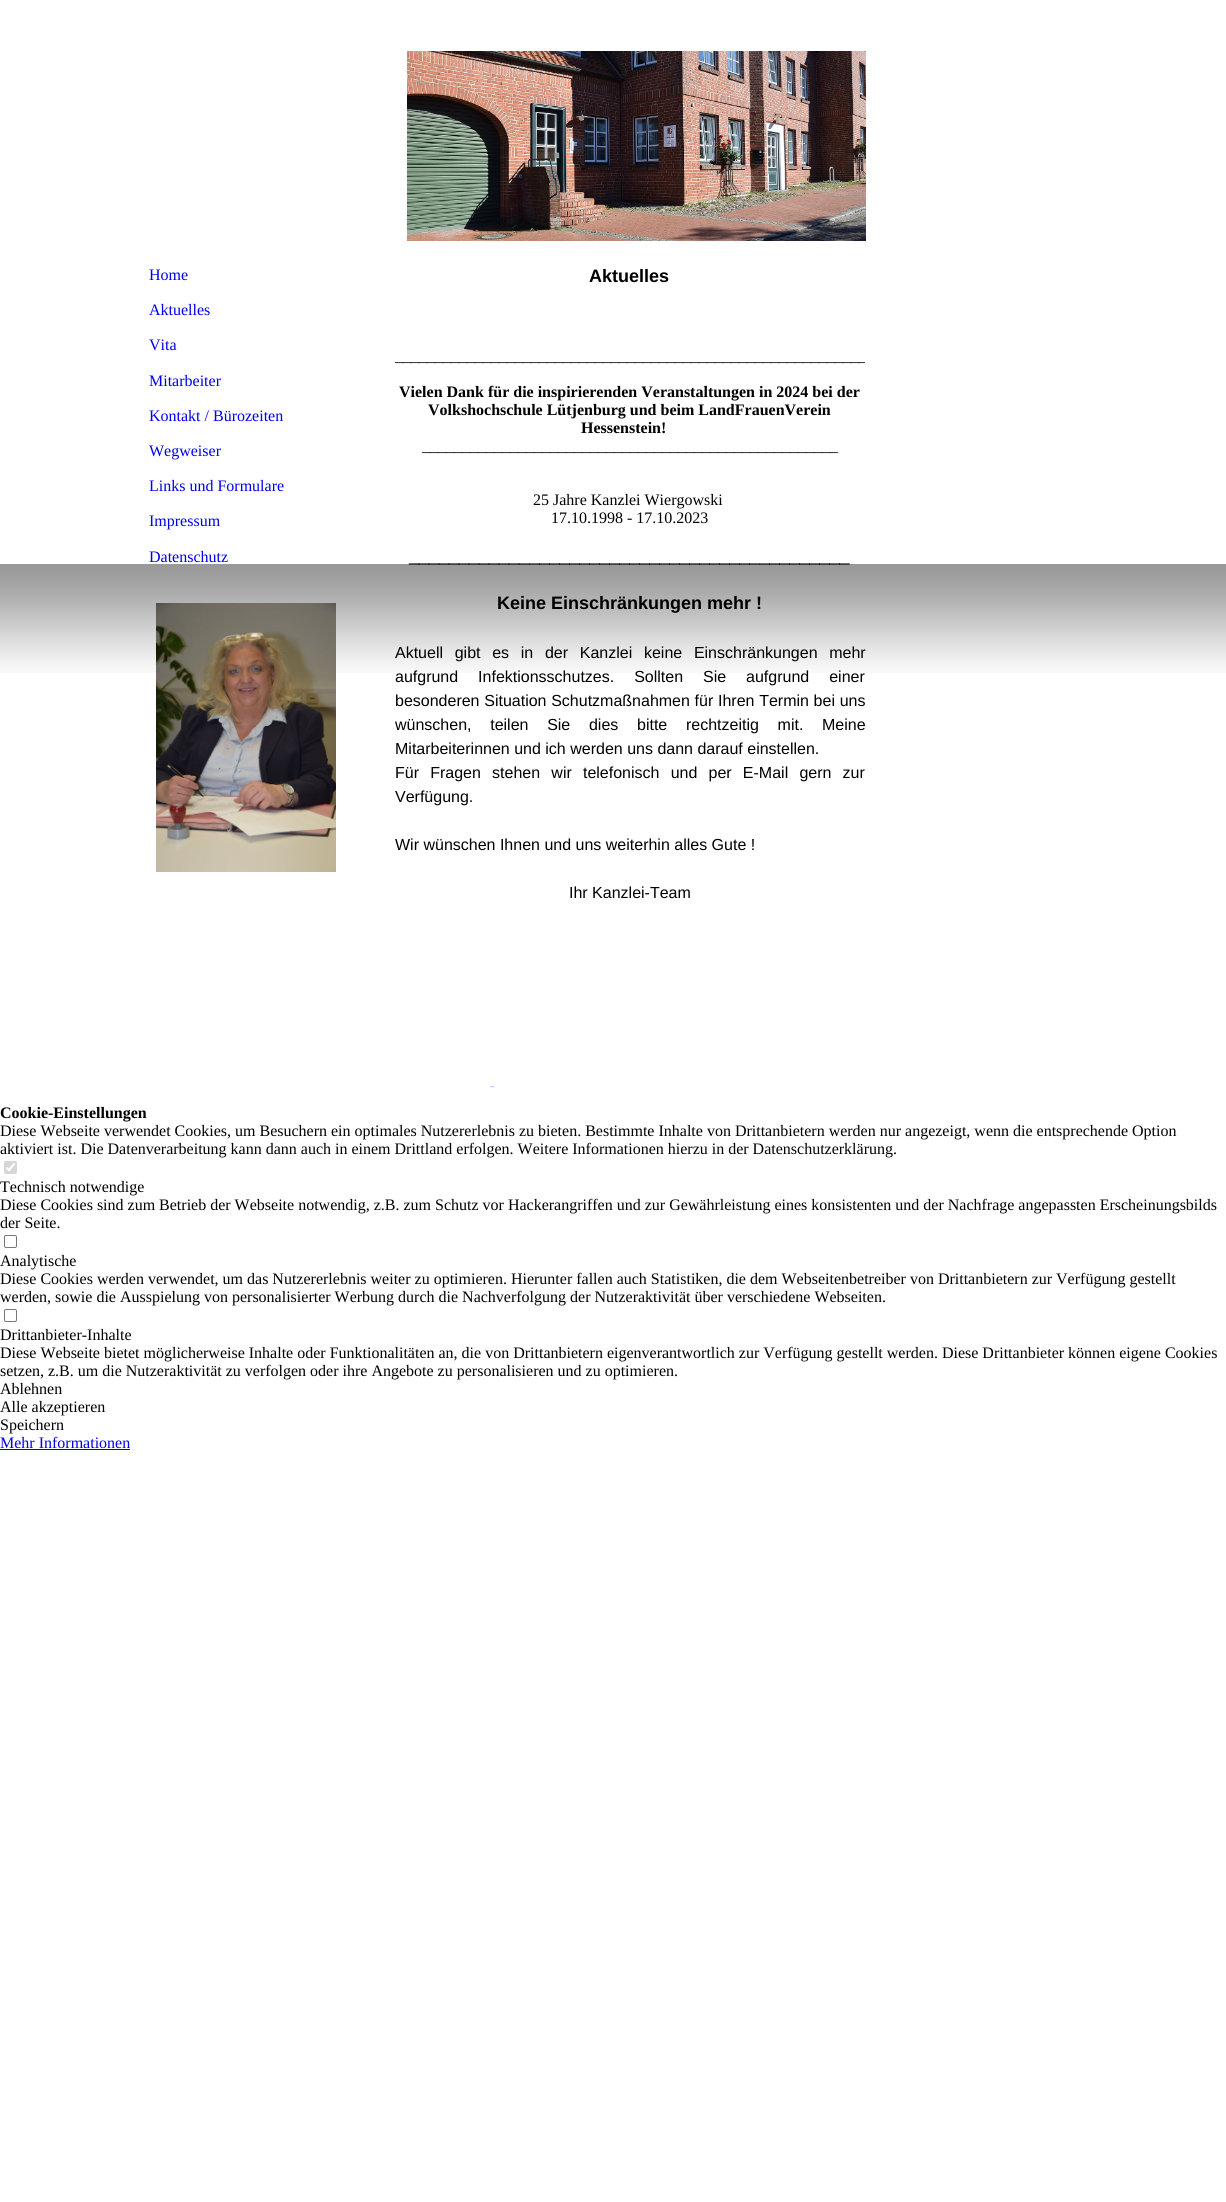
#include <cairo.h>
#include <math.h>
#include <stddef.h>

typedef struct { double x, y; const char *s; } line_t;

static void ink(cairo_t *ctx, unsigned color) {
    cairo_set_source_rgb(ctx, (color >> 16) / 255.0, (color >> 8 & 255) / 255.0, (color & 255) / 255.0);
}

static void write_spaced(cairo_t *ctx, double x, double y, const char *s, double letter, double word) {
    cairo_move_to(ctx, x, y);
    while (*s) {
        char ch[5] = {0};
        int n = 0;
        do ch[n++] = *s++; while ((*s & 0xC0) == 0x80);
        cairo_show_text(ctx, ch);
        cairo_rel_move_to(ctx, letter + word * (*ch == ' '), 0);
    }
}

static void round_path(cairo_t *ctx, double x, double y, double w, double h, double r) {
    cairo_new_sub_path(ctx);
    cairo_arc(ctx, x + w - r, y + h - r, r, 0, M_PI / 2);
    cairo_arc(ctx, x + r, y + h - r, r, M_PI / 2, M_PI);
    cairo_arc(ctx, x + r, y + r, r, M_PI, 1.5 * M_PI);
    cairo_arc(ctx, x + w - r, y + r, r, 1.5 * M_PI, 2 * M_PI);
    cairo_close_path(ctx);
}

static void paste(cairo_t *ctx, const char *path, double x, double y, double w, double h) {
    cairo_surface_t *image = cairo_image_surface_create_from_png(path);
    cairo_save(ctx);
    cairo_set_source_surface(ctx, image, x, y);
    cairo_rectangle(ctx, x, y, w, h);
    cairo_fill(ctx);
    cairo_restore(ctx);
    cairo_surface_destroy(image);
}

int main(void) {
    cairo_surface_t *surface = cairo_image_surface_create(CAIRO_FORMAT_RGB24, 1226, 2202);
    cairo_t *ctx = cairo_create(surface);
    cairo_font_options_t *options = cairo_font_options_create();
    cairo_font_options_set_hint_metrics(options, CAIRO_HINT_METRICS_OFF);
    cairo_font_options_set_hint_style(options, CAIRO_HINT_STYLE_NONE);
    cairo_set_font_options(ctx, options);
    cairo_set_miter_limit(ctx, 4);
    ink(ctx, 0xFFFFFF);
    cairo_paint(ctx);
    paste(ctx, "media/1.png", 0, 564, 1226, 109);
    paste(ctx, "media/2.png", 407, 51, 459, 190);
    cairo_select_font_face(ctx, "Liberation Serif", CAIRO_FONT_SLANT_NORMAL, CAIRO_FONT_WEIGHT_NORMAL);
    cairo_set_font_size(ctx, 16);
    ink(ctx, 0x0000EE);
    {
        static const line_t items[] = {
            {149, 280, "Home"},
            {149, 315, "Aktuelles"},
            {149, 350, "Vita"},
            {149, 386, "Mitarbeiter"},
            {149, 421, "Kontakt / Bürozeiten"},
            {149, 456, "Wegweiser"},
            {149, 491, "Links und Formulare"},
            {149, 526, "Impressum"},
            {149, 562, "Datenschutz"},
        };
        for (size_t i = 0; i < sizeof items / sizeof *items; i++) {
            cairo_move_to(ctx, items[i].x, items[i].y);
            cairo_show_text(ctx, items[i].s);
        }
    }
    paste(ctx, "media/3.png", 156, 603, 180, 269);
    cairo_select_font_face(ctx, "Liberation Sans", CAIRO_FONT_SLANT_NORMAL, CAIRO_FONT_WEIGHT_BOLD);
    cairo_set_font_size(ctx, 18);
    ink(ctx, 0x000000);
    cairo_move_to(ctx, 589, 282);
    cairo_show_text(ctx, "Aktuelles");
    cairo_save(ctx);
    cairo_rectangle(ctx, 395, 242, 470, 807);
    cairo_clip(ctx);
    cairo_select_font_face(ctx, "Liberation Serif", CAIRO_FONT_SLANT_NORMAL, CAIRO_FONT_WEIGHT_NORMAL);
    cairo_set_font_size(ctx, 16);
    cairo_move_to(ctx, 395, 361);
    cairo_show_text(ctx, "___________________________________________________________");
    cairo_restore(ctx);
    cairo_select_font_face(ctx, "Liberation Serif", CAIRO_FONT_SLANT_NORMAL, CAIRO_FONT_WEIGHT_BOLD);
    cairo_set_font_size(ctx, 16);
    {
        static const line_t items[] = {
            {399, 397, "Vielen Dank für die inspirierenden Veranstaltungen in 2024 bei der"},
            {428, 415, "Volkshochschule Lütjenburg und beim LandFrauenVerein"},
            {581, 433, "Hessenstein!"},
        };
        for (size_t i = 0; i < sizeof items / sizeof *items; i++) {
            cairo_move_to(ctx, items[i].x, items[i].y);
            cairo_show_text(ctx, items[i].s);
        }
    }
    cairo_select_font_face(ctx, "Liberation Serif", CAIRO_FONT_SLANT_NORMAL, CAIRO_FONT_WEIGHT_NORMAL);
    {
        static const line_t items[] = {
            {422, 451, "____________________________________________________"},
            {533, 505, "25 Jahre Kanzlei Wiergowski"},
            {551, 523, "17.10.1998 - 17.10.2023"},
        };
        for (size_t i = 0; i < sizeof items / sizeof *items; i++) {
            cairo_move_to(ctx, items[i].x, items[i].y);
            cairo_show_text(ctx, items[i].s);
        }
    }
    cairo_select_font_face(ctx, "Liberation Sans", CAIRO_FONT_SLANT_NORMAL, CAIRO_FONT_WEIGHT_NORMAL);
    cairo_set_font_size(ctx, 18);
    cairo_move_to(ctx, 409, 561);
    cairo_show_text(ctx, "____________________________________________");
    cairo_select_font_face(ctx, "Liberation Sans", CAIRO_FONT_SLANT_NORMAL, CAIRO_FONT_WEIGHT_BOLD);
    cairo_move_to(ctx, 497, 609);
    cairo_show_text(ctx, "Keine Einschränkungen mehr !");
    cairo_select_font_face(ctx, "Liberation Sans", CAIRO_FONT_SLANT_NORMAL, CAIRO_FONT_WEIGHT_NORMAL);
    cairo_set_font_size(ctx, 16);
    write_spaced(ctx, 395, 658, "Aktuell gibt es in der Kanzlei keine Einschränkungen mehr", 0, 7.25);
    write_spaced(ctx, 395, 682, "aufgrund Infektionsschutzes. Sollten Sie aufgrund einer", 0, 15.5);
    write_spaced(ctx, 395, 706, "besonderen Situation Schutzmaßnahmen für Ihren Termin bei uns", 0, 0.25);
    write_spaced(ctx, 395, 730, "wünschen, teilen Sie dies bitte rechtzeitig mit. Meine", 0, 14.25);
    cairo_move_to(ctx, 395, 754);
    cairo_show_text(ctx, "Mitarbeiterinnen und ich werden uns dann darauf einstellen.");
    write_spaced(ctx, 395, 778, "Für Fragen stehen wir telefonisch und per E-Mail gern zur", 0, 6.75);
    {
        static const line_t items[] = {
            {395, 802, "Verfügung."},
            {395, 850, "Wir wünschen Ihnen und uns weiterhin alles Gute !"},
            {569, 898, "Ihr Kanzlei-Team"},
        };
        for (size_t i = 0; i < sizeof items / sizeof *items; i++) {
            cairo_move_to(ctx, items[i].x, items[i].y);
            cairo_show_text(ctx, items[i].s);
        }
    }
    cairo_select_font_face(ctx, "Liberation Serif", CAIRO_FONT_SLANT_NORMAL, CAIRO_FONT_WEIGHT_NORMAL);
    cairo_set_font_size(ctx, 14);
    ink(ctx, 0x99CCFF);
    cairo_move_to(ctx, 490, 1090);
    cairo_show_text(ctx, "-");
    cairo_select_font_face(ctx, "Liberation Serif", CAIRO_FONT_SLANT_NORMAL, CAIRO_FONT_WEIGHT_BOLD);
    cairo_set_font_size(ctx, 16);
    ink(ctx, 0x000000);
    cairo_move_to(ctx, 0, 1118);
    cairo_show_text(ctx, "Cookie-Einstellungen");
    cairo_select_font_face(ctx, "Liberation Serif", CAIRO_FONT_SLANT_NORMAL, CAIRO_FONT_WEIGHT_NORMAL);
    cairo_move_to(ctx, 0, 1136);
    cairo_show_text(ctx, "Diese Webseite verwendet Cookies, um Besuchern ein optimales Nutzererlebnis zu bieten. Bestimmte Inhalte von Drittanbietern werden nur angezeigt, wenn die entsprechende Option");
    cairo_move_to(ctx, 0, 1154);
    cairo_show_text(ctx, "aktiviert ist. Die Datenverarbeitung kann dann auch in einem Drittland erfolgen. Weitere Informationen hierzu in der Datenschutzerklärung.");
    ink(ctx, 0xD6D6D6);
    round_path(ctx, 4, 1161, 13, 13, 2);
    cairo_fill(ctx);
    cairo_new_path(ctx);
    cairo_move_to(ctx, 6.5, 1167.5);
    cairo_line_to(ctx, 9, 1170);
    cairo_line_to(ctx, 14.5, 1163.5);
    ink(ctx, 0xFFFFFF);
    cairo_set_line_width(ctx, 2.1);
    cairo_stroke(ctx);
    ink(ctx, 0x000000);
    {
        static const line_t items[] = {
            {0, 1192, "Technisch notwendige"},
            {0, 1210, "Diese Cookies sind zum Betrieb der Webseite notwendig, z.B. zum Schutz vor Hackerangriffen und zur Gewährleistung eines konsistenten und der Nachfrage angepassten Erscheinungsbilds"},
            {0, 1228, "der Seite."},
        };
        for (size_t i = 0; i < sizeof items / sizeof *items; i++) {
            cairo_move_to(ctx, items[i].x, items[i].y);
            cairo_show_text(ctx, items[i].s);
        }
    }
    round_path(ctx, 4.5, 1235.5, 12, 12, 1.5);
    ink(ctx, 0x767676);
    cairo_set_line_width(ctx, 1);
    cairo_stroke(ctx);
    ink(ctx, 0x000000);
    {
        static const line_t items[] = {
            {0, 1266, "Analytische"},
            {0, 1284, "Diese Cookies werden verwendet, um das Nutzererlebnis weiter zu optimieren. Hierunter fallen auch Statistiken, die dem Webseitenbetreiber von Drittanbietern zur Verfügung gestellt"},
            {0, 1302, "werden, sowie die Ausspielung von personalisierter Werbung durch die Nachverfolgung der Nutzeraktivität über verschiedene Webseiten."},
        };
        for (size_t i = 0; i < sizeof items / sizeof *items; i++) {
            cairo_move_to(ctx, items[i].x, items[i].y);
            cairo_show_text(ctx, items[i].s);
        }
    }
    round_path(ctx, 4.5, 1309.5, 12, 12, 1.5);
    ink(ctx, 0x767676);
    cairo_stroke(ctx);
    ink(ctx, 0x000000);
    {
        static const line_t items[] = {
            {0, 1340, "Drittanbieter-Inhalte"},
            {0, 1358, "Diese Webseite bietet möglicherweise Inhalte oder Funktionalitäten an, die von Drittanbietern eigenverantwortlich zur Verfügung gestellt werden. Diese Drittanbieter können eigene Cookies"},
            {0, 1376, "setzen, z.B. um die Nutzeraktivität zu verfolgen oder ihre Angebote zu personalisieren und zu optimieren."},
            {0, 1394, "Ablehnen"},
            {0, 1412, "Alle akzeptieren"},
            {0, 1430, "Speichern"},
        };
        for (size_t i = 0; i < sizeof items / sizeof *items; i++) {
            cairo_move_to(ctx, items[i].x, items[i].y);
            cairo_show_text(ctx, items[i].s);
        }
    }
    ink(ctx, 0x0000EE);
    cairo_move_to(ctx, 0, 1448);
    cairo_show_text(ctx, "Mehr Informationen");
    cairo_rectangle(ctx, 0, 1449, 130, 1);
    cairo_fill(ctx);
    cairo_surface_write_to_png(surface, "image.png");
    cairo_font_options_destroy(options);
    cairo_destroy(ctx);
    cairo_surface_destroy(surface);
    return 0;
}
